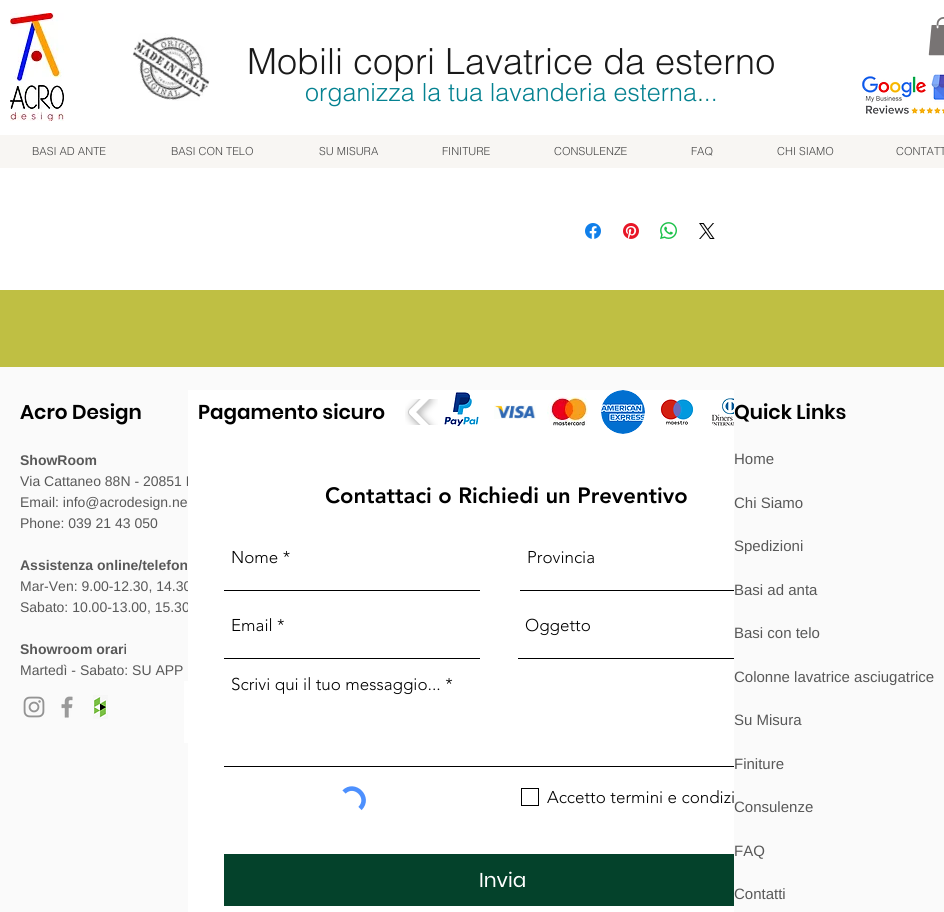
#include <cairo.h>
#include <math.h>
#include <stddef.h>

typedef struct { double x, y; const char *s; } line_t;

static void ink(cairo_t *ctx, unsigned color) {
    cairo_set_source_rgb(ctx, (color >> 16) / 255.0, (color >> 8 & 255) / 255.0, (color & 255) / 255.0);
}

static void paste(cairo_t *ctx, const char *path, double x, double y, double w, double h) {
    cairo_surface_t *image = cairo_image_surface_create_from_png(path);
    cairo_save(ctx);
    cairo_set_source_surface(ctx, image, x, y);
    cairo_rectangle(ctx, x, y, w, h);
    cairo_fill(ctx);
    cairo_restore(ctx);
    cairo_surface_destroy(image);
}

int main(void) {
    cairo_surface_t *surface = cairo_image_surface_create(CAIRO_FORMAT_RGB24, 944, 912);
    cairo_t *ctx = cairo_create(surface);
    cairo_font_options_t *options = cairo_font_options_create();
    cairo_font_options_set_hint_metrics(options, CAIRO_HINT_METRICS_OFF);
    cairo_font_options_set_hint_style(options, CAIRO_HINT_STYLE_NONE);
    cairo_set_font_options(ctx, options);
    cairo_set_miter_limit(ctx, 4);
    ink(ctx, 0xBFBF43);
    cairo_paint(ctx);
    ink(ctx, 0xFFFFFF);
    cairo_rectangle(ctx, 0, 0, 944, 290);
    cairo_fill(ctx);
    paste(ctx, "media/1.png", 585, 223, 16, 16);
    paste(ctx, "media/2.png", 623, 223, 16, 16);
    paste(ctx, "media/3.png", 660, 222, 17, 17);
    paste(ctx, "media/4.png", 699, 223, 16, 16);
    paste(ctx, "media/5.png", 10, 13, 54, 108);
    paste(ctx, "media/6.png", 132, 33, 78, 68);
    cairo_select_font_face(ctx, "helvetica Light", CAIRO_FONT_SLANT_NORMAL, CAIRO_FONT_WEIGHT_NORMAL);
    cairo_set_font_size(ctx, 36);
    ink(ctx, 0x1A1A1A);
    cairo_move_to(ctx, 247, 74);
    cairo_show_text(ctx, "Mobili copri Lavatrice da esterno");
    cairo_set_font_size(ctx, 25);
    ink(ctx, 0x058291);
    cairo_move_to(ctx, 305, 101);
    cairo_show_text(ctx, "organizza la tua lavanderia esterna ..");
    ink(ctx, 0x056E54);
    cairo_move_to(ctx, 697, 101);
    cairo_show_text(ctx, ".");
    paste(ctx, "media/7.png", 928, 17, 16, 39);
    paste(ctx, "media/8.png", 862, 74, 82, 40);
    ink(ctx, 0xF8F6F3);
    cairo_rectangle(ctx, 0, 135, 944, 33);
    cairo_fill(ctx);
    cairo_set_font_size(ctx, 11);
    ink(ctx, 0x444444);
    {
        static const line_t items[] = {
            {32, 155, "BASI AD ANTE"},
            {171, 155, "BASI CON TELO"},
            {319, 155, "SU MISURA"},
            {442, 155, "FINITURE"},
            {554, 155, "CONSULENZE"},
            {691, 155, "FAQ"},
            {777, 155, "CHI SIAMO"},
            {896, 155, "CONTATT"},
        };
        for (size_t i = 0; i < sizeof items / sizeof *items; i++) {
            cairo_move_to(ctx, items[i].x, items[i].y);
            cairo_show_text(ctx, items[i].s);
        }
    }
    ink(ctx, 0xFAFAFA);
    cairo_rectangle(ctx, 0, 367, 244, 545);
    cairo_fill(ctx);
    cairo_select_font_face(ctx, "Poppins SemiBold", CAIRO_FONT_SLANT_NORMAL, CAIRO_FONT_WEIGHT_NORMAL);
    cairo_set_font_size(ctx, 20);
    ink(ctx, 0x000000);
    cairo_move_to(ctx, 20, 419);
    cairo_show_text(ctx, "Acro Design");
    cairo_select_font_face(ctx, "Liberation Sans", CAIRO_FONT_SLANT_NORMAL, CAIRO_FONT_WEIGHT_BOLD);
    cairo_set_font_size(ctx, 14);
    ink(ctx, 0x585858);
    cairo_move_to(ctx, 20, 465);
    cairo_show_text(ctx, "ShowRoom");
    cairo_select_font_face(ctx, "Liberation Sans", CAIRO_FONT_SLANT_NORMAL, CAIRO_FONT_WEIGHT_NORMAL);
    {
        static const line_t items[] = {
            {20, 486, "Via Cattaneo 88N - 20851 L"},
            {20, 507, "Email: info@acrodesign.ne"},
            {20, 528, "Phone: 039 21 43 050"},
        };
        for (size_t i = 0; i < sizeof items / sizeof *items; i++) {
            cairo_move_to(ctx, items[i].x, items[i].y);
            cairo_show_text(ctx, items[i].s);
        }
    }
    cairo_select_font_face(ctx, "Liberation Sans", CAIRO_FONT_SLANT_NORMAL, CAIRO_FONT_WEIGHT_BOLD);
    cairo_move_to(ctx, 20, 570);
    cairo_show_text(ctx, "Assistenza online/telefon");
    cairo_select_font_face(ctx, "Liberation Sans", CAIRO_FONT_SLANT_NORMAL, CAIRO_FONT_WEIGHT_NORMAL);
    cairo_move_to(ctx, 20, 591);
    cairo_show_text(ctx, "Mar-Ven: 9.00-12.30, 14.30");
    cairo_move_to(ctx, 20, 612);
    cairo_show_text(ctx, "Sabato: 10.00-13.00, 15.30");
    cairo_select_font_face(ctx, "Liberation Sans", CAIRO_FONT_SLANT_NORMAL, CAIRO_FONT_WEIGHT_BOLD);
    cairo_move_to(ctx, 20, 654);
    cairo_show_text(ctx, "Showroom orari");
    cairo_select_font_face(ctx, "Liberation Sans", CAIRO_FONT_SLANT_NORMAL, CAIRO_FONT_WEIGHT_NORMAL);
    cairo_move_to(ctx, 20, 675);
    cairo_show_text(ctx, "Martedì - Sabato: SU APP");
    paste(ctx, "media/9.png", 23, 696, 22, 22);
    paste(ctx, "media/10.png", 61, 696, 12, 22);
    paste(ctx, "media/11.png", 93, 695, 15, 24);
    paste(ctx, "media/12.png", 184, 681, 4, 62);
    ink(ctx, 0xFAFAFA);
    cairo_rectangle(ctx, 244, 367, 490, 23);
    cairo_fill(ctx);
    ink(ctx, 0xFFFFFF);
    cairo_rectangle(ctx, 188, 390, 546, 522);
    cairo_fill(ctx);
    cairo_select_font_face(ctx, "Poppins SemiBold", CAIRO_FONT_SLANT_NORMAL, CAIRO_FONT_WEIGHT_NORMAL);
    cairo_set_font_size(ctx, 20);
    ink(ctx, 0x000000);
    cairo_move_to(ctx, 198, 419);
    cairo_show_text(ctx, "Pagamento sicuro");
    paste(ctx, "media/13.png", 405, 399, 33, 26);
    paste(ctx, "media/14.png", 444, 392, 35, 34);
    paste(ctx, "media/15.png", 494, 405, 42, 14);
    paste(ctx, "media/16.png", 547, 397, 41, 29);
    paste(ctx, "media/17.png", 601, 390, 44, 44);
    paste(ctx, "media/18.png", 660, 399, 34, 26);
    paste(ctx, "media/19.png", 712, 398, 22, 28);
    cairo_select_font_face(ctx, "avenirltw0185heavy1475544 Black", CAIRO_FONT_SLANT_NORMAL, CAIRO_FONT_WEIGHT_NORMAL);
    cairo_set_font_size(ctx, 22);
    cairo_move_to(ctx, 325, 503);
    cairo_show_text(ctx, "Contattaci o Richiedi un Preventivo");
    cairo_rectangle(ctx, 224, 590, 256, 1);
    cairo_fill(ctx);
    cairo_select_font_face(ctx, "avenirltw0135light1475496 Light", CAIRO_FONT_SLANT_NORMAL, CAIRO_FONT_WEIGHT_NORMAL);
    cairo_set_font_size(ctx, 17);
    cairo_move_to(ctx, 231, 563);
    cairo_show_text(ctx, "Nome *");
    cairo_rectangle(ctx, 520, 590, 214, 1);
    cairo_fill(ctx);
    cairo_move_to(ctx, 527, 563);
    cairo_show_text(ctx, "Provincia");
    cairo_rectangle(ctx, 224, 658, 256, 1);
    cairo_fill(ctx);
    cairo_move_to(ctx, 231, 631);
    cairo_show_text(ctx, "Email *");
    cairo_rectangle(ctx, 518, 658, 216, 1);
    cairo_fill(ctx);
    cairo_move_to(ctx, 525, 631);
    cairo_show_text(ctx, "Oggetto");
    cairo_rectangle(ctx, 224, 766, 510, 1);
    cairo_fill(ctx);
    cairo_move_to(ctx, 231, 690);
    cairo_show_text(ctx, "Scrivi qui il tuo messaggio... *");
    cairo_new_path(ctx);
    cairo_move_to(ctx, 344, 792);
    cairo_curve_to(ctx, 354.5, 781.5, 371, 797.5, 360, 808.5);
    ink(ctx, 0x4D90FE);
    cairo_set_line_width(ctx, 4.6);
    cairo_stroke(ctx);
    cairo_rectangle(ctx, 521.5, 788.5, 17, 17);
    ink(ctx, 0x000000);
    cairo_set_line_width(ctx, 1);
    cairo_stroke(ctx);
    cairo_move_to(ctx, 547, 803);
    cairo_show_text(ctx, "Accetto termini e condizi");
    ink(ctx, 0x04422B);
    cairo_rectangle(ctx, 224, 854, 510, 52);
    cairo_fill(ctx);
    cairo_select_font_face(ctx, "Poppins", CAIRO_FONT_SLANT_NORMAL, CAIRO_FONT_WEIGHT_NORMAL);
    cairo_set_font_size(ctx, 20);
    ink(ctx, 0xFFFFFF);
    cairo_move_to(ctx, 479, 887);
    cairo_show_text(ctx, "Invia");
    ink(ctx, 0xFAFAFA);
    cairo_rectangle(ctx, 734, 367, 210, 545);
    cairo_fill(ctx);
    cairo_select_font_face(ctx, "Poppins SemiBold", CAIRO_FONT_SLANT_NORMAL, CAIRO_FONT_WEIGHT_NORMAL);
    ink(ctx, 0x000000);
    cairo_move_to(ctx, 734, 419);
    cairo_show_text(ctx, "Quick Links");
    cairo_select_font_face(ctx, "Liberation Sans", CAIRO_FONT_SLANT_NORMAL, CAIRO_FONT_WEIGHT_NORMAL);
    cairo_set_font_size(ctx, 15);
    ink(ctx, 0x585858);
    {
        static const line_t items[] = {
            {734, 464, "Home"},
            {734, 508, "Chi Siamo"},
            {734, 551, "Spedizioni"},
            {734, 595, "Basi ad anta"},
            {734, 638, "Basi con telo"},
            {734, 682, "Colonne lavatrice asciugatrice"},
            {734, 725, "Su Misura"},
            {734, 769, "Finiture"},
            {734, 812, "Consulenze"},
            {734, 856, "FAQ"},
            {734, 899, "Contatti"},
        };
        for (size_t i = 0; i < sizeof items / sizeof *items; i++) {
            cairo_move_to(ctx, items[i].x, items[i].y);
            cairo_show_text(ctx, items[i].s);
        }
    }
    cairo_surface_write_to_png(surface, "image.png");
    cairo_font_options_destroy(options);
    cairo_destroy(ctx);
    cairo_surface_destroy(surface);
    return 0;
}
